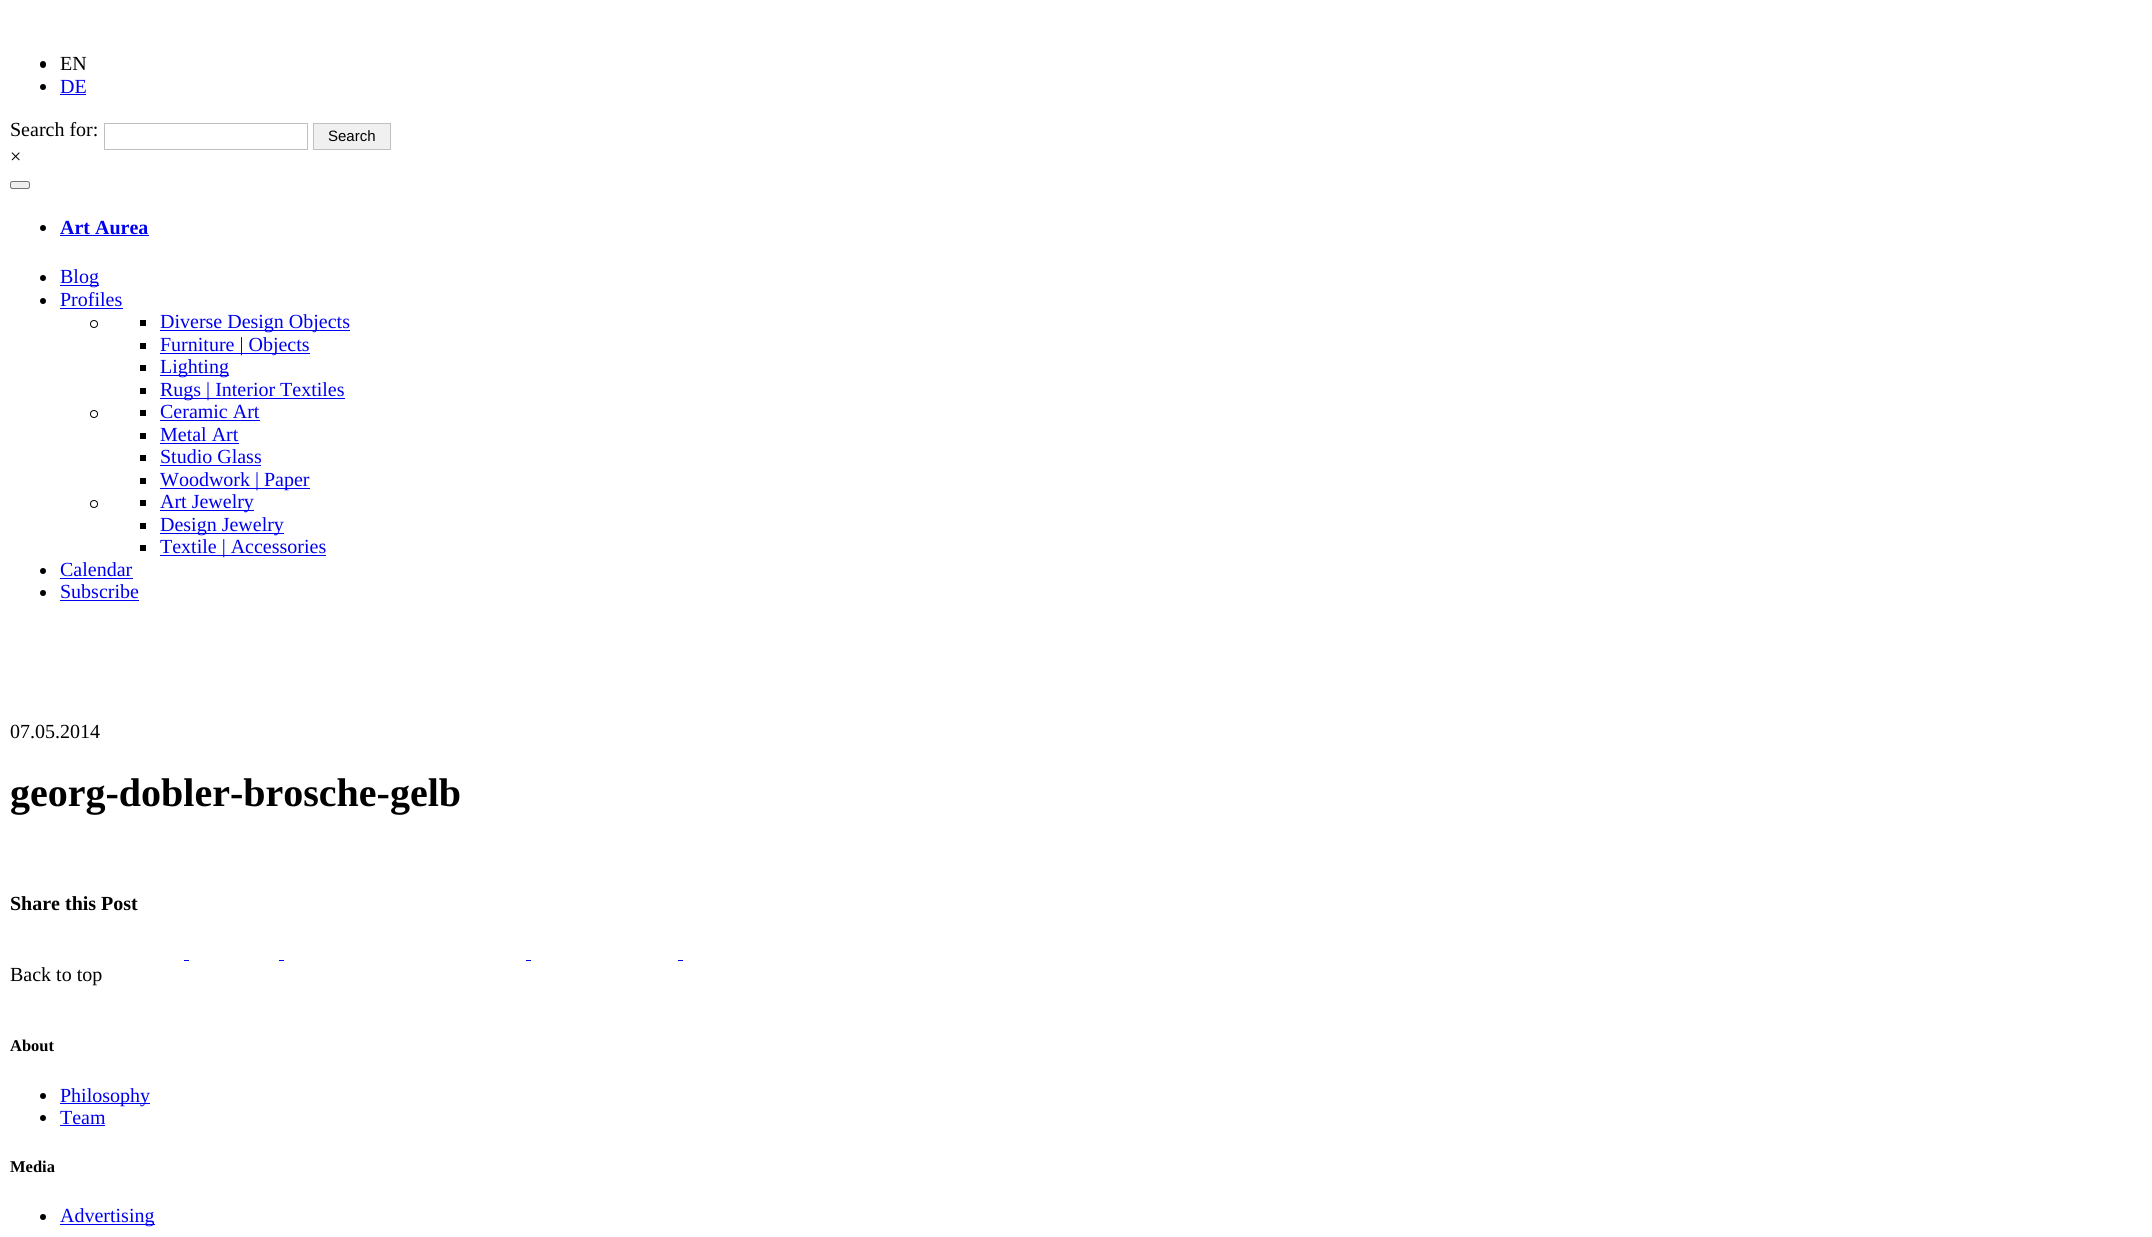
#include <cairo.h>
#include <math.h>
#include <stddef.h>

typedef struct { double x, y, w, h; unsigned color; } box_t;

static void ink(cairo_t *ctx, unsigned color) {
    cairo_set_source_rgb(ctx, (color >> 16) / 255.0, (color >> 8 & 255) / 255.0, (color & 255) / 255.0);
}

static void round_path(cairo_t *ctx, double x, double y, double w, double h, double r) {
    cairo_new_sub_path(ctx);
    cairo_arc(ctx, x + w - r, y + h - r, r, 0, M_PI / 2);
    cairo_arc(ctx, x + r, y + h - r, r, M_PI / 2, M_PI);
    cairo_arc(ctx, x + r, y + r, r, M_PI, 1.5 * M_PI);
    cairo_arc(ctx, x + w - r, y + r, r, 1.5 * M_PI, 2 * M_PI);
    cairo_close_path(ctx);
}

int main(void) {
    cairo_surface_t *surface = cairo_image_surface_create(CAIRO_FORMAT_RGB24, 2152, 1237);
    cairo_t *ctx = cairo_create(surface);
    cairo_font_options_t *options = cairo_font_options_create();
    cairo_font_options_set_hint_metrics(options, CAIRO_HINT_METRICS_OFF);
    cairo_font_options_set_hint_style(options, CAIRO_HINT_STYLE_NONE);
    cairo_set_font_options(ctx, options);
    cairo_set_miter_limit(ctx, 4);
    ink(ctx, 0xFFFFFF);
    cairo_paint(ctx);
    ink(ctx, 0x000000);
    round_path(ctx, 40, 61, 6, 7, 3);
    cairo_fill(ctx);
    cairo_select_font_face(ctx, "Liberation Serif", CAIRO_FONT_SLANT_NORMAL, CAIRO_FONT_WEIGHT_NORMAL);
    cairo_set_font_size(ctx, 20);
    cairo_move_to(ctx, 60, 70);
    cairo_show_text(ctx, "EN");
    cairo_new_path(ctx);
    cairo_arc(ctx, 43, 87, 3, 0, 2 * M_PI);
    cairo_fill(ctx);
    ink(ctx, 0x0000EE);
    cairo_move_to(ctx, 60, 93);
    cairo_show_text(ctx, "DE");
    cairo_rectangle(ctx, 60, 94, 26, 1);
    cairo_fill(ctx);
    ink(ctx, 0x000000);
    cairo_move_to(ctx, 10, 136);
    cairo_show_text(ctx, "Search for:");
    cairo_rectangle(ctx, 104.5, 123.5, 203, 26);
    ink(ctx, 0xC0C0C0);
    cairo_set_line_width(ctx, 1);
    cairo_stroke(ctx);
    ink(ctx, 0xF0F0F0);
    cairo_rectangle(ctx, 313.5, 123.5, 77, 26);
    cairo_fill_preserve(ctx);
    ink(ctx, 0xC0C0C0);
    cairo_stroke(ctx);
    cairo_select_font_face(ctx, "Liberation Sans", CAIRO_FONT_SLANT_NORMAL, CAIRO_FONT_WEIGHT_NORMAL);
    cairo_set_font_size(ctx, 15);
    ink(ctx, 0x000000);
    cairo_move_to(ctx, 328, 141);
    cairo_show_text(ctx, "Search");
    cairo_select_font_face(ctx, "Liberation Serif", CAIRO_FONT_SLANT_NORMAL, CAIRO_FONT_WEIGHT_NORMAL);
    cairo_set_font_size(ctx, 20);
    cairo_move_to(ctx, 10, 163);
    cairo_show_text(ctx, "×");
    ink(ctx, 0xEFEFEF);
    round_path(ctx, 10.5, 181.5, 19, 7, 2);
    cairo_fill_preserve(ctx);
    ink(ctx, 0x767676);
    cairo_stroke(ctx);
    ink(ctx, 0x000000);
    cairo_arc(ctx, 43, 228, 3, 0, 2 * M_PI);
    cairo_fill(ctx);
    cairo_select_font_face(ctx, "Liberation Serif", CAIRO_FONT_SLANT_NORMAL, CAIRO_FONT_WEIGHT_BOLD);
    ink(ctx, 0x0000EE);
    cairo_move_to(ctx, 60, 234);
    cairo_show_text(ctx, "Art Aurea");
    cairo_rectangle(ctx, 60, 235, 89, 1);
    cairo_fill(ctx);
    ink(ctx, 0x000000);
    cairo_arc(ctx, 43, 278, 3, 0, 2 * M_PI);
    cairo_fill(ctx);
    ink(ctx, 0x0000EE);
    cairo_rectangle(ctx, 60, 285, 39, 1);
    cairo_fill(ctx);
    cairo_select_font_face(ctx, "Liberation Serif", CAIRO_FONT_SLANT_NORMAL, CAIRO_FONT_WEIGHT_NORMAL);
    cairo_move_to(ctx, 60, 283);
    cairo_show_text(ctx, "Blog");
    ink(ctx, 0x000000);
    cairo_new_path(ctx);
    cairo_arc(ctx, 43, 301, 3, 0, 2 * M_PI);
    cairo_fill(ctx);
    ink(ctx, 0x0000EE);
    cairo_move_to(ctx, 60, 306);
    cairo_show_text(ctx, "Profiles");
    cairo_rectangle(ctx, 60, 308, 63, 1);
    cairo_fill(ctx);
    cairo_arc(ctx, 94, 324, 3.5, 0, 2 * M_PI);
    ink(ctx, 0x000000);
    cairo_stroke(ctx);
    cairo_rectangle(ctx, 140, 320, 6, 6);
    cairo_fill(ctx);
    ink(ctx, 0x0000EE);
    cairo_rectangle(ctx, 160, 330, 190, 1);
    cairo_fill(ctx);
    cairo_move_to(ctx, 160, 328);
    cairo_show_text(ctx, "Diverse Design Objects");
    ink(ctx, 0x000000);
    cairo_rectangle(ctx, 140, 343, 6, 6);
    cairo_fill(ctx);
    ink(ctx, 0x0000EE);
    cairo_rectangle(ctx, 160, 353, 150, 1);
    cairo_fill(ctx);
    cairo_move_to(ctx, 160, 351);
    cairo_show_text(ctx, "Furniture | Objects");
    ink(ctx, 0x000000);
    cairo_rectangle(ctx, 140, 365, 6, 6);
    cairo_fill(ctx);
    ink(ctx, 0x0000EE);
    cairo_rectangle(ctx, 160, 375, 69, 1);
    cairo_fill(ctx);
    cairo_move_to(ctx, 160, 373);
    cairo_show_text(ctx, "Lighting");
    ink(ctx, 0x000000);
    cairo_rectangle(ctx, 140, 388, 6, 6);
    cairo_fill(ctx);
    ink(ctx, 0x0000EE);
    cairo_rectangle(ctx, 160, 398, 185, 1);
    cairo_fill(ctx);
    cairo_move_to(ctx, 160, 396);
    cairo_show_text(ctx, "Rugs | Interior Textiles");
    cairo_new_path(ctx);
    cairo_arc(ctx, 94, 414, 3.5, 0, 2 * M_PI);
    ink(ctx, 0x000000);
    cairo_stroke(ctx);
    cairo_rectangle(ctx, 140, 410, 6, 6);
    cairo_fill(ctx);
    ink(ctx, 0x0000EE);
    cairo_move_to(ctx, 160, 418);
    cairo_show_text(ctx, "Ceramic Art");
    cairo_rectangle(ctx, 160, 420, 100, 1);
    cairo_fill(ctx);
    ink(ctx, 0x000000);
    cairo_rectangle(ctx, 140, 433, 6, 6);
    cairo_fill(ctx);
    ink(ctx, 0x0000EE);
    cairo_move_to(ctx, 160, 441);
    cairo_show_text(ctx, "Metal Art");
    cairo_rectangle(ctx, 160, 443, 79, 1);
    cairo_fill(ctx);
    ink(ctx, 0x000000);
    cairo_rectangle(ctx, 140, 455, 6, 6);
    cairo_fill(ctx);
    ink(ctx, 0x0000EE);
    cairo_move_to(ctx, 160, 463);
    cairo_show_text(ctx, "Studio Glass");
    {
        static const box_t items[] = {
            {160, 465, 101, 1, 0x0000EE},
            {140, 478, 6, 6, 0x000000},
            {160, 488, 150, 1, 0x0000EE},
        };
        for (size_t i = 0; i < sizeof items / sizeof *items; i++) {
            ink(ctx, items[i].color);
            cairo_rectangle(ctx, items[i].x, items[i].y, items[i].w, items[i].h);
            cairo_fill(ctx);
        }
    }
    cairo_move_to(ctx, 160, 486);
    cairo_show_text(ctx, "Woodwork | Paper");
    cairo_new_path(ctx);
    cairo_arc(ctx, 94, 504, 3.5, 0, 2 * M_PI);
    ink(ctx, 0x000000);
    cairo_stroke(ctx);
    cairo_rectangle(ctx, 140, 500, 6, 6);
    cairo_fill(ctx);
    ink(ctx, 0x0000EE);
    cairo_rectangle(ctx, 160, 510, 94, 1);
    cairo_fill(ctx);
    cairo_move_to(ctx, 160, 508);
    cairo_show_text(ctx, "Art Jewelry");
    ink(ctx, 0x000000);
    cairo_rectangle(ctx, 140, 523, 6, 6);
    cairo_fill(ctx);
    ink(ctx, 0x0000EE);
    cairo_rectangle(ctx, 160, 533, 124, 1);
    cairo_fill(ctx);
    cairo_move_to(ctx, 160, 531);
    cairo_show_text(ctx, "Design Jewelry");
    ink(ctx, 0x000000);
    cairo_rectangle(ctx, 140, 545, 6, 6);
    cairo_fill(ctx);
    ink(ctx, 0x0000EE);
    cairo_rectangle(ctx, 160, 555, 166, 1);
    cairo_fill(ctx);
    cairo_move_to(ctx, 160, 553);
    cairo_show_text(ctx, "Textile | Accessories");
    ink(ctx, 0x000000);
    cairo_new_path(ctx);
    cairo_arc(ctx, 43, 571, 3, 0, 2 * M_PI);
    cairo_fill(ctx);
    ink(ctx, 0x0000EE);
    cairo_move_to(ctx, 60, 576);
    cairo_show_text(ctx, "Calendar");
    cairo_rectangle(ctx, 60, 578, 73, 1);
    cairo_fill(ctx);
    ink(ctx, 0x000000);
    cairo_arc(ctx, 43, 593, 3, 0, 2 * M_PI);
    cairo_fill(ctx);
    ink(ctx, 0x0000EE);
    cairo_move_to(ctx, 60, 598);
    cairo_show_text(ctx, "Subscribe");
    cairo_rectangle(ctx, 60, 600, 79, 1);
    cairo_fill(ctx);
    ink(ctx, 0x000000);
    cairo_move_to(ctx, 10, 738);
    cairo_show_text(ctx, "07.05.2014");
    cairo_select_font_face(ctx, "Liberation Serif", CAIRO_FONT_SLANT_NORMAL, CAIRO_FONT_WEIGHT_BOLD);
    cairo_set_font_size(ctx, 40);
    cairo_move_to(ctx, 10, 806);
    cairo_show_text(ctx, "georg-dobler-brosche-gelb");
    cairo_set_font_size(ctx, 20);
    cairo_move_to(ctx, 10, 910);
    cairo_show_text(ctx, "Share this Post");
    {
        static const box_t items[] = {
            {184, 960, 5, 1, 0x0000EE},
            {279, 960, 5, 1, 0x0000EE},
            {526, 960, 5, 1, 0x0000EE},
            {678, 960, 5, 1, 0x0000EE},
        };
        for (size_t i = 0; i < sizeof items / sizeof *items; i++) {
            ink(ctx, items[i].color);
            cairo_rectangle(ctx, items[i].x, items[i].y, items[i].w, items[i].h);
            cairo_fill(ctx);
        }
    }
    cairo_select_font_face(ctx, "Liberation Serif", CAIRO_FONT_SLANT_NORMAL, CAIRO_FONT_WEIGHT_NORMAL);
    ink(ctx, 0x000000);
    cairo_move_to(ctx, 10, 981);
    cairo_show_text(ctx, "Back to top");
    cairo_select_font_face(ctx, "Liberation Serif", CAIRO_FONT_SLANT_NORMAL, CAIRO_FONT_WEIGHT_BOLD);
    cairo_set_font_size(ctx, 16.5);
    cairo_move_to(ctx, 10, 1051);
    cairo_show_text(ctx, "About");
    cairo_new_path(ctx);
    cairo_arc(ctx, 43, 1096, 3, 0, 2 * M_PI);
    cairo_fill(ctx);
    ink(ctx, 0x0000EE);
    cairo_rectangle(ctx, 60, 1103, 90, 1);
    cairo_fill(ctx);
    cairo_select_font_face(ctx, "Liberation Serif", CAIRO_FONT_SLANT_NORMAL, CAIRO_FONT_WEIGHT_NORMAL);
    cairo_set_font_size(ctx, 20);
    cairo_move_to(ctx, 60, 1102);
    cairo_show_text(ctx, "Philosophy");
    ink(ctx, 0x000000);
    cairo_new_path(ctx);
    cairo_arc(ctx, 43, 1118, 3, 0, 2 * M_PI);
    cairo_fill(ctx);
    ink(ctx, 0x0000EE);
    cairo_move_to(ctx, 60, 1124);
    cairo_show_text(ctx, "Team");
    cairo_rectangle(ctx, 60, 1125, 45, 1);
    cairo_fill(ctx);
    cairo_select_font_face(ctx, "Liberation Serif", CAIRO_FONT_SLANT_NORMAL, CAIRO_FONT_WEIGHT_BOLD);
    cairo_set_font_size(ctx, 16.5);
    ink(ctx, 0x000000);
    cairo_move_to(ctx, 10, 1172);
    cairo_show_text(ctx, "Media");
    cairo_new_path(ctx);
    cairo_arc(ctx, 43, 1217, 3, 0, 2 * M_PI);
    cairo_fill(ctx);
    ink(ctx, 0x0000EE);
    cairo_rectangle(ctx, 60, 1224, 95, 1);
    cairo_fill(ctx);
    cairo_select_font_face(ctx, "Liberation Serif", CAIRO_FONT_SLANT_NORMAL, CAIRO_FONT_WEIGHT_NORMAL);
    cairo_set_font_size(ctx, 20);
    cairo_move_to(ctx, 60, 1222);
    cairo_show_text(ctx, "Advertising");
    cairo_surface_write_to_png(surface, "image.png");
    cairo_font_options_destroy(options);
    cairo_destroy(ctx);
    cairo_surface_destroy(surface);
    return 0;
}
